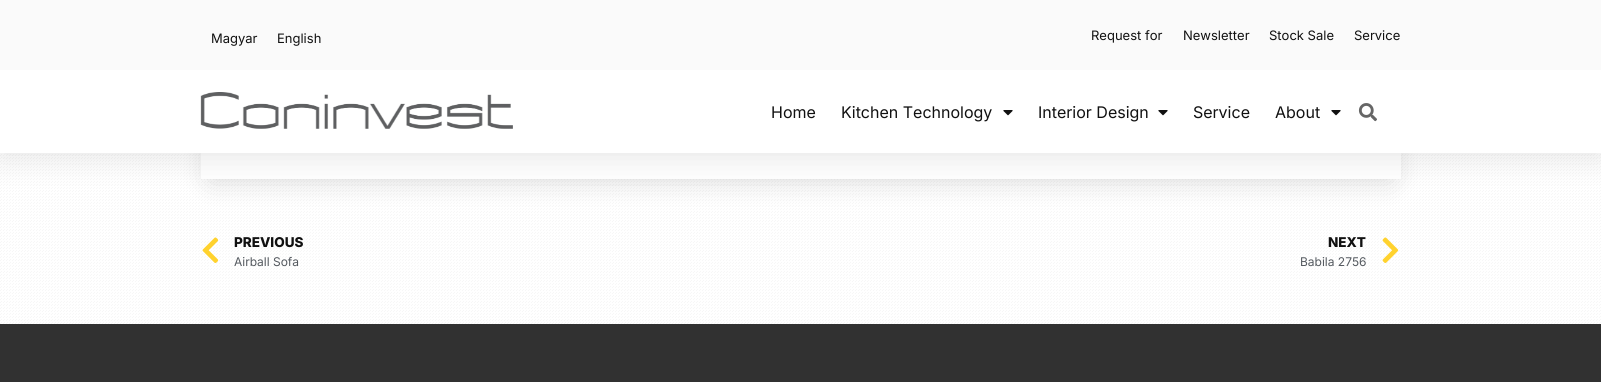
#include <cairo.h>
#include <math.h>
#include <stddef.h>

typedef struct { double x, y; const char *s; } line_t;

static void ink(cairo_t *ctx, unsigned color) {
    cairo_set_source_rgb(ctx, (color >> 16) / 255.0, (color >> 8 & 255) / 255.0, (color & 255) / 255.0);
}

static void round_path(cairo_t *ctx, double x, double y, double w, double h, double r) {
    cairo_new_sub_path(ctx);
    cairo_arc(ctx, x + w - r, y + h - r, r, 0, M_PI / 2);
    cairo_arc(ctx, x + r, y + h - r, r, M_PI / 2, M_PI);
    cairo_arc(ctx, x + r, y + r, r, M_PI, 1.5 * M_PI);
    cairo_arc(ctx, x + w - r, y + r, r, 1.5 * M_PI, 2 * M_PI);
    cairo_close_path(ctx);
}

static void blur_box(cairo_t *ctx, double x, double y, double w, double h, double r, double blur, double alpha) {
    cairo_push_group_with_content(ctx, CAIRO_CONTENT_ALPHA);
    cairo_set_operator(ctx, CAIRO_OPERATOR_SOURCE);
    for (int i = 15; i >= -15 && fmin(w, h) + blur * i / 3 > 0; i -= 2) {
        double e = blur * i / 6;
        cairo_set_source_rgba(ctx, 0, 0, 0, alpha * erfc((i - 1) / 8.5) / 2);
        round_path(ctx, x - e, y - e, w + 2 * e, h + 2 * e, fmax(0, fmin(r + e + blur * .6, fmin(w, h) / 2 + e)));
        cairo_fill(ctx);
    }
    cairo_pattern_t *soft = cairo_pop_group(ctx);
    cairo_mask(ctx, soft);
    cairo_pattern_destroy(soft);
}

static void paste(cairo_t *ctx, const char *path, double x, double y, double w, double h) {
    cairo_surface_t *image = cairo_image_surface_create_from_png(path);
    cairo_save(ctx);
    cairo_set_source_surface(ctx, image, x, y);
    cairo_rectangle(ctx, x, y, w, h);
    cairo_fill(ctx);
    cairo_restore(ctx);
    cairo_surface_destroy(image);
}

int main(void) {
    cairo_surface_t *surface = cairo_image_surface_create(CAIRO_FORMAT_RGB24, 1601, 382);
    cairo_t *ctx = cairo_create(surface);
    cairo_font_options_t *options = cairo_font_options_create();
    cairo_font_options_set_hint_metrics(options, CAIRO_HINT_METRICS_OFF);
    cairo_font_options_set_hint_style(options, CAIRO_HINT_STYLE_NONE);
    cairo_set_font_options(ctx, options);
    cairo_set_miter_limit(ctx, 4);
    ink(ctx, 0xFFFFFF);
    cairo_paint(ctx);
    paste(ctx, "media/1.png", 0, 154, 1601, 170);
    ink(ctx, 0x000000);
    blur_box(ctx, 211, 18, 1180, 161, 0, 15, 0.15);
    ink(ctx, 0xFFFFFF);
    cairo_rectangle(ctx, 201, 153, 1200, 26);
    cairo_fill(ctx);
    ink(ctx, 0x000000);
    blur_box(ctx, 0, 5, 1601, 153, 0, 15, 0.1);
    ink(ctx, 0xFAFAFA);
    cairo_rectangle(ctx, 0, 0, 1601, 70);
    cairo_fill(ctx);
    cairo_select_font_face(ctx, "Inter", CAIRO_FONT_SLANT_NORMAL, CAIRO_FONT_WEIGHT_NORMAL);
    cairo_set_font_size(ctx, 13);
    ink(ctx, 0x111111);
    {
        static const line_t items[] = {
            {211, 43, "Magyar"},
            {277, 43, "English"},
            {1091, 40, "Request for"},
            {1183, 40, "Newsletter"},
            {1269, 40, "Stock Sale"},
            {1354, 40, "Service"},
        };
        for (size_t i = 0; i < sizeof items / sizeof *items; i++) {
            cairo_move_to(ctx, items[i].x, items[i].y);
            cairo_show_text(ctx, items[i].s);
        }
    }
    ink(ctx, 0xFFFFFF);
    cairo_rectangle(ctx, 0, 70, 1601, 83);
    cairo_fill(ctx);
    paste(ctx, "media/2.png", 200, 92, 313, 37);
    cairo_set_font_size(ctx, 16);
    ink(ctx, 0x111111);
    cairo_move_to(ctx, 771, 118);
    cairo_show_text(ctx, "Home");
    cairo_move_to(ctx, 841, 118);
    cairo_show_text(ctx, "Kitchen Technology");
    paste(ctx, "media/3.png", 1003, 110, 10, 6);
    cairo_move_to(ctx, 1038, 118);
    cairo_show_text(ctx, "Interior Design");
    paste(ctx, "media/3.png", 1158, 110, 10, 6);
    cairo_move_to(ctx, 1193, 118);
    cairo_show_text(ctx, "Service");
    cairo_move_to(ctx, 1275, 118);
    cairo_show_text(ctx, "About");
    paste(ctx, "media/3.png", 1331, 110, 10, 6);
    paste(ctx, "media/4.png", 1358, 103, 19, 19);
    paste(ctx, "media/5.png", 202, 237, 17, 26);
    cairo_select_font_face(ctx, "Inter ExtraBold", CAIRO_FONT_SLANT_NORMAL, CAIRO_FONT_WEIGHT_NORMAL);
    cairo_set_font_size(ctx, 13.5);
    cairo_move_to(ctx, 234, 247);
    cairo_show_text(ctx, "PREVIOUS");
    cairo_select_font_face(ctx, "Inter", CAIRO_FONT_SLANT_NORMAL, CAIRO_FONT_WEIGHT_NORMAL);
    cairo_set_font_size(ctx, 12);
    ink(ctx, 0x54595F);
    cairo_move_to(ctx, 234, 266);
    cairo_show_text(ctx, "Airball Sofa");
    cairo_select_font_face(ctx, "Inter ExtraBold", CAIRO_FONT_SLANT_NORMAL, CAIRO_FONT_WEIGHT_NORMAL);
    cairo_set_font_size(ctx, 13.5);
    ink(ctx, 0x111111);
    cairo_move_to(ctx, 1328, 247);
    cairo_show_text(ctx, "NEXT");
    cairo_select_font_face(ctx, "Inter", CAIRO_FONT_SLANT_NORMAL, CAIRO_FONT_WEIGHT_NORMAL);
    cairo_set_font_size(ctx, 12);
    ink(ctx, 0x54595F);
    cairo_move_to(ctx, 1300, 266);
    cairo_show_text(ctx, "Babila 2756");
    paste(ctx, "media/6.png", 1382, 237, 17, 26);
    ink(ctx, 0x313131);
    cairo_rectangle(ctx, 0, 324, 1601, 58);
    cairo_fill(ctx);
    cairo_surface_write_to_png(surface, "image.png");
    cairo_font_options_destroy(options);
    cairo_destroy(ctx);
    cairo_surface_destroy(surface);
    return 0;
}
